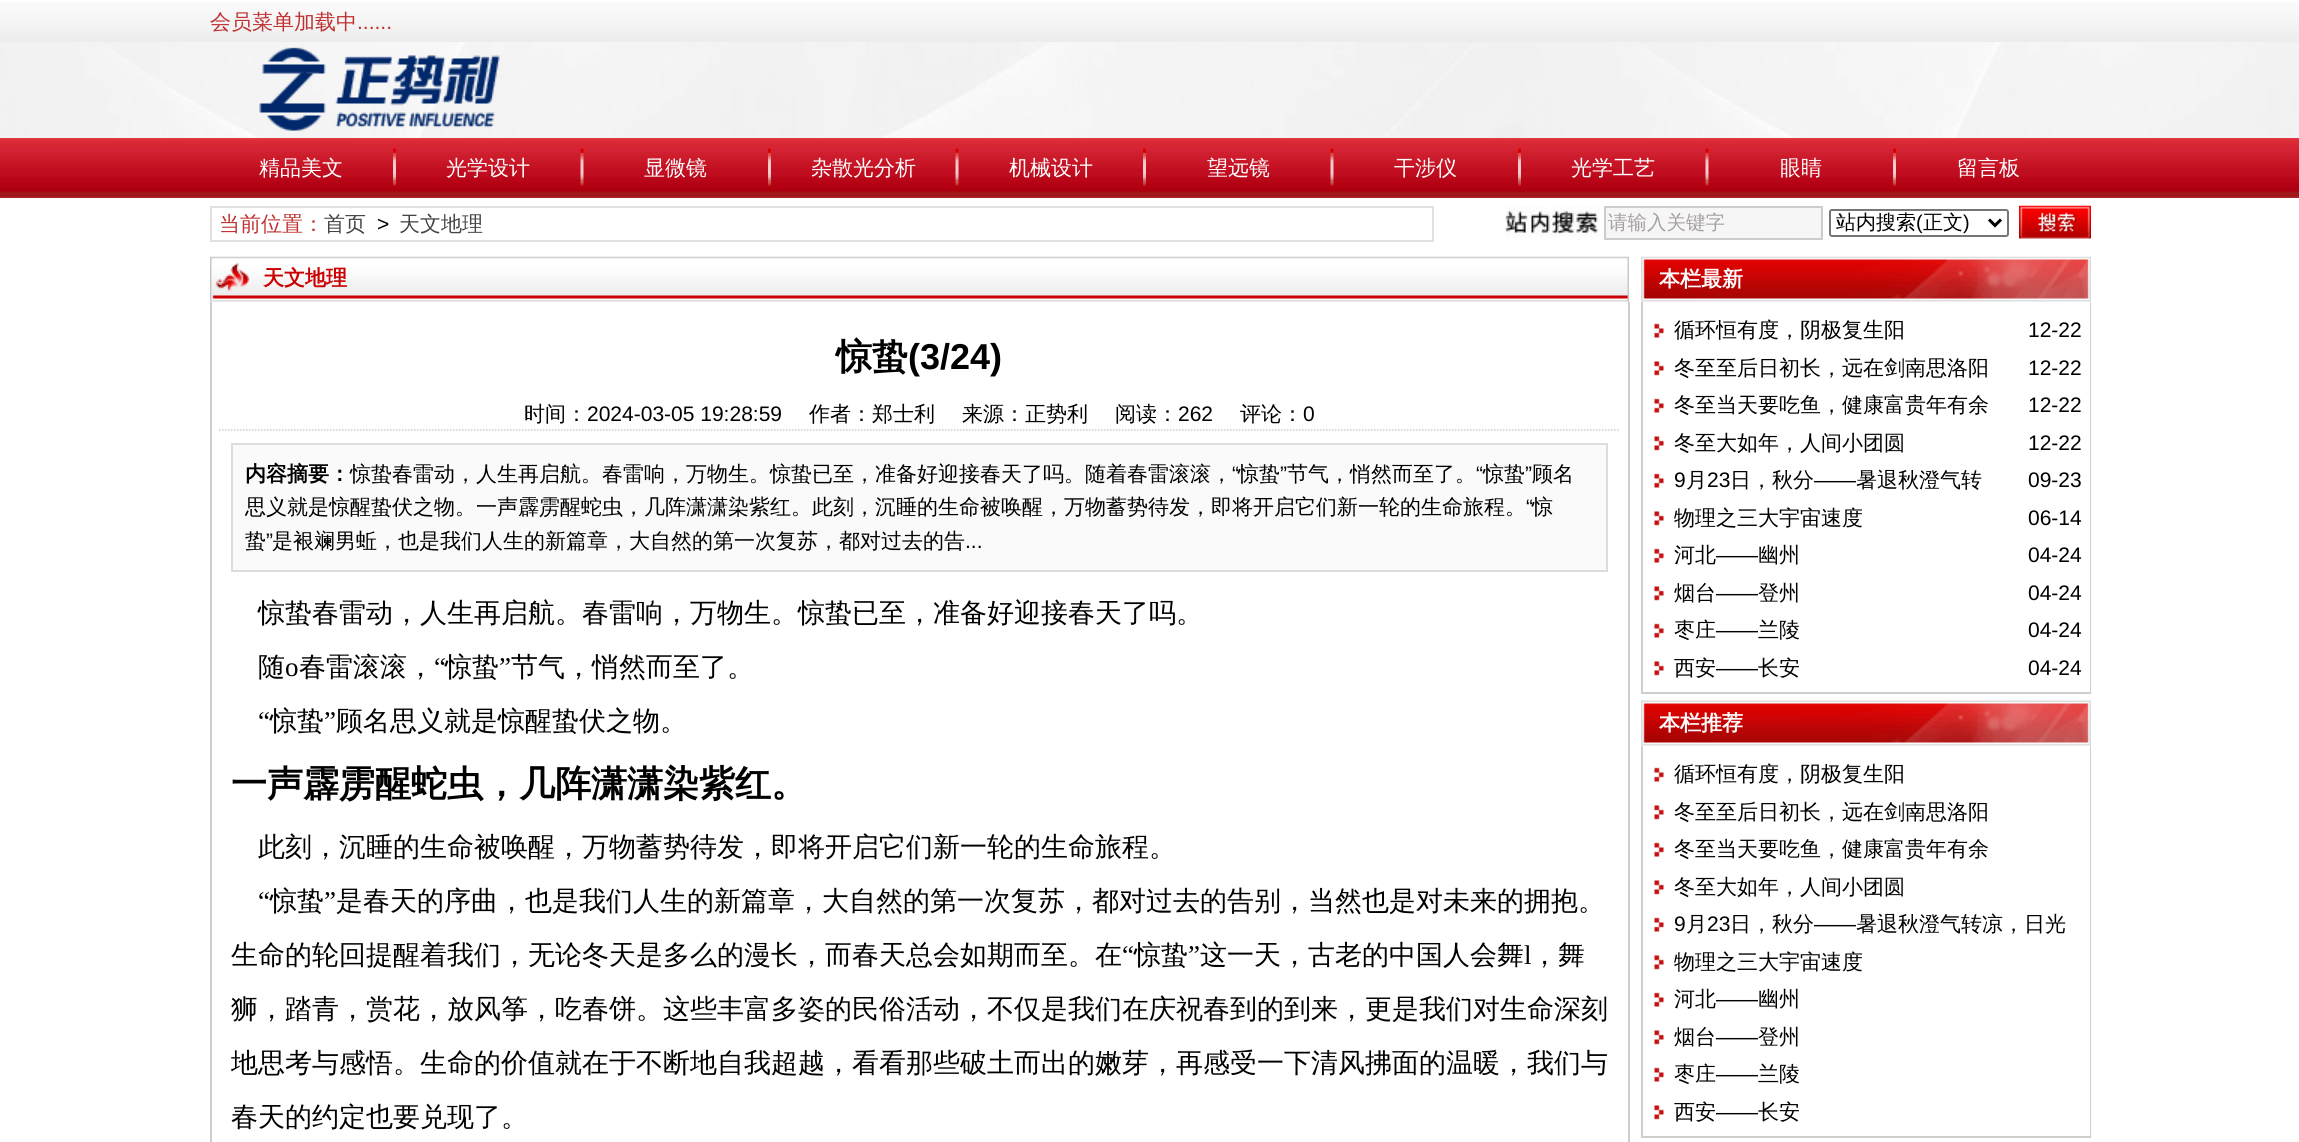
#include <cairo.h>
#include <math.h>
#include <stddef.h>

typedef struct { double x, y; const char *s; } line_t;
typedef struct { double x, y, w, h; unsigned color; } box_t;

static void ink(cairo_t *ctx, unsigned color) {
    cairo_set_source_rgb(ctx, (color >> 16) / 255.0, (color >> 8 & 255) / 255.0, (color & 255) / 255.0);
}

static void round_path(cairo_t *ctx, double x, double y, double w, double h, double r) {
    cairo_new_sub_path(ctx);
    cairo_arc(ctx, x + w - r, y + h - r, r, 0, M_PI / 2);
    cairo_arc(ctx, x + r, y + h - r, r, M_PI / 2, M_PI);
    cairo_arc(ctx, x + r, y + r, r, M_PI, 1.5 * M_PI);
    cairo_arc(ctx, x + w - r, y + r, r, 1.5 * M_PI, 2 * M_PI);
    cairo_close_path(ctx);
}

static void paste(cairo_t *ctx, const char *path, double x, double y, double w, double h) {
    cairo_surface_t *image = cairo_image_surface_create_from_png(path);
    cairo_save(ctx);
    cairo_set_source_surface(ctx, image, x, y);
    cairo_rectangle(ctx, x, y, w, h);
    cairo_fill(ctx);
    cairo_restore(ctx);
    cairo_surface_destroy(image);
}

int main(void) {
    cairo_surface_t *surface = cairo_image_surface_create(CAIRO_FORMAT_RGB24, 2299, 1142);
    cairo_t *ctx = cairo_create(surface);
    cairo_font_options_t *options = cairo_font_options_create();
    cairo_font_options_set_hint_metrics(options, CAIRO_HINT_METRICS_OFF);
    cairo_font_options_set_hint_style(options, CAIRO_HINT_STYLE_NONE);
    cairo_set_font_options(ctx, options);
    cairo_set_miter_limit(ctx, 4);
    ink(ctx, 0xFFFFFF);
    cairo_paint(ctx);
    paste(ctx, "media/1.png", 0, 2, 2299, 40);
    cairo_select_font_face(ctx, "WenQuanYi Zen Hei Medium", CAIRO_FONT_SLANT_NORMAL, CAIRO_FONT_WEIGHT_NORMAL);
    cairo_set_font_size(ctx, 21);
    ink(ctx, 0xBF3131);
    cairo_move_to(ctx, 210, 29);
    cairo_show_text(ctx, "会员菜单加载中");
    cairo_select_font_face(ctx, "Liberation Sans", CAIRO_FONT_SLANT_NORMAL, CAIRO_FONT_WEIGHT_NORMAL);
    cairo_move_to(ctx, 357, 29);
    cairo_show_text(ctx, "......");
    paste(ctx, "media/2.png", 0, 42, 2299, 96);
    paste(ctx, "media/3.png", 259, 47, 241, 84);
    paste(ctx, "media/4.png", 0, 138, 2299, 60);
    cairo_select_font_face(ctx, "WenQuanYi Zen Hei Medium", CAIRO_FONT_SLANT_NORMAL, CAIRO_FONT_WEIGHT_NORMAL);
    ink(ctx, 0xFFFFFF);
    cairo_move_to(ctx, 259, 175);
    cairo_show_text(ctx, "精品美文");
    paste(ctx, "media/5.png", 393, 148, 3, 41);
    cairo_move_to(ctx, 446, 175);
    cairo_show_text(ctx, "光学设计");
    paste(ctx, "media/6.png", 580, 148, 4, 41);
    cairo_move_to(ctx, 644, 175);
    cairo_show_text(ctx, "显微镜");
    paste(ctx, "media/5.png", 768, 148, 3, 41);
    cairo_move_to(ctx, 811, 175);
    cairo_show_text(ctx, "杂散光分析");
    paste(ctx, "media/6.png", 955, 148, 4, 41);
    cairo_move_to(ctx, 1009, 175);
    cairo_show_text(ctx, "机械设计");
    paste(ctx, "media/5.png", 1143, 148, 3, 41);
    cairo_move_to(ctx, 1207, 175);
    cairo_show_text(ctx, "望远镜");
    paste(ctx, "media/6.png", 1330, 148, 4, 41);
    cairo_move_to(ctx, 1394, 175);
    cairo_show_text(ctx, "干涉仪");
    paste(ctx, "media/5.png", 1518, 148, 3, 41);
    cairo_move_to(ctx, 1571, 175);
    cairo_show_text(ctx, "光学工艺");
    paste(ctx, "media/6.png", 1705, 148, 4, 41);
    cairo_move_to(ctx, 1780, 175);
    cairo_show_text(ctx, "眼睛");
    paste(ctx, "media/5.png", 1893, 148, 3, 41);
    cairo_move_to(ctx, 1957, 175);
    cairo_show_text(ctx, "留言板");
    cairo_rectangle(ctx, 211, 207, 1222, 34);
    ink(ctx, 0xE0E0E0);
    cairo_stroke(ctx);
    ink(ctx, 0xBF3131);
    cairo_move_to(ctx, 219, 231);
    cairo_show_text(ctx, "当前位置：");
    ink(ctx, 0x444444);
    cairo_move_to(ctx, 324, 231);
    cairo_show_text(ctx, "首页");
    cairo_select_font_face(ctx, "Liberation Sans", CAIRO_FONT_SLANT_NORMAL, CAIRO_FONT_WEIGHT_NORMAL);
    ink(ctx, 0x000000);
    cairo_move_to(ctx, 377, 231);
    cairo_show_text(ctx, ">");
    cairo_select_font_face(ctx, "WenQuanYi Zen Hei Medium", CAIRO_FONT_SLANT_NORMAL, CAIRO_FONT_WEIGHT_NORMAL);
    ink(ctx, 0x444444);
    cairo_move_to(ctx, 399, 231);
    cairo_show_text(ctx, "天文地理");
    paste(ctx, "media/7.png", 1505, 206, 95, 31);
    ink(ctx, 0xF6F6F6);
    cairo_rectangle(ctx, 1605, 207, 217, 32);
    cairo_fill_preserve(ctx);
    ink(ctx, 0xCCCCCC);
    cairo_stroke(ctx);
    cairo_set_font_size(ctx, 19.5);
    ink(ctx, 0xA59EA3);
    cairo_move_to(ctx, 1608, 229);
    cairo_show_text(ctx, "请输入关键字");
    round_path(ctx, 1830, 210, 178, 26, 2);
    ink(ctx, 0x767676);
    cairo_stroke(ctx);
    cairo_new_path(ctx);
    cairo_move_to(ctx, 1989, 219.5);
    cairo_line_to(ctx, 1995, 225.5);
    cairo_line_to(ctx, 2001, 219.5);
    ink(ctx, 0x000000);
    cairo_set_line_width(ctx, 3);
    cairo_stroke(ctx);
    cairo_set_font_size(ctx, 20);
    cairo_move_to(ctx, 1836, 229);
    cairo_show_text(ctx, "站内搜索");
    cairo_select_font_face(ctx, "Liberation Sans", CAIRO_FONT_SLANT_NORMAL, CAIRO_FONT_WEIGHT_NORMAL);
    cairo_move_to(ctx, 1916, 229);
    cairo_show_text(ctx, "(");
    cairo_select_font_face(ctx, "WenQuanYi Zen Hei Medium", CAIRO_FONT_SLANT_NORMAL, CAIRO_FONT_WEIGHT_NORMAL);
    cairo_move_to(ctx, 1923, 229);
    cairo_show_text(ctx, "正文");
    cairo_select_font_face(ctx, "Liberation Sans", CAIRO_FONT_SLANT_NORMAL, CAIRO_FONT_WEIGHT_NORMAL);
    cairo_move_to(ctx, 1963, 229);
    cairo_show_text(ctx, ")");
    paste(ctx, "media/8.png", 2019, 205, 72, 34);
    paste(ctx, "media/9.png", 210, 256, 1419, 46);
    cairo_select_font_face(ctx, "WenQuanYi Zen Hei", CAIRO_FONT_SLANT_NORMAL, CAIRO_FONT_WEIGHT_BOLD);
    cairo_set_font_size(ctx, 21);
    ink(ctx, 0xCC0000);
    cairo_move_to(ctx, 263, 285);
    cairo_show_text(ctx, "天文地理");
    ink(ctx, 0xCECECE);
    cairo_rectangle(ctx, 1628, 302, 2, 840);
    cairo_fill(ctx);
    cairo_rectangle(ctx, 210, 302, 2, 840);
    cairo_fill(ctx);
    cairo_new_path(ctx);
    cairo_move_to(ctx, 219, 430);
    cairo_line_to(ctx, 1620, 430);
    ink(ctx, 0xCCCCCC);
    cairo_set_line_width(ctx, 1.5);
    cairo_set_dash(ctx, (double[]){1.5, 1.5}, 2, 0);
    cairo_stroke(ctx);
    cairo_set_font_size(ctx, 36);
    ink(ctx, 0x000000);
    cairo_move_to(ctx, 836, 369);
    cairo_show_text(ctx, "惊蛰");
    cairo_select_font_face(ctx, "Liberation Sans", CAIRO_FONT_SLANT_NORMAL, CAIRO_FONT_WEIGHT_BOLD);
    cairo_move_to(ctx, 908, 369);
    cairo_show_text(ctx, "(3/24)");
    cairo_select_font_face(ctx, "WenQuanYi Zen Hei Medium", CAIRO_FONT_SLANT_NORMAL, CAIRO_FONT_WEIGHT_NORMAL);
    cairo_set_font_size(ctx, 21);
    cairo_move_to(ctx, 524, 421);
    cairo_show_text(ctx, "时间：");
    cairo_select_font_face(ctx, "Liberation Sans", CAIRO_FONT_SLANT_NORMAL, CAIRO_FONT_WEIGHT_NORMAL);
    cairo_move_to(ctx, 587, 421);
    cairo_show_text(ctx, "2024-03-05 19:28:59");
    cairo_select_font_face(ctx, "WenQuanYi Zen Hei Medium", CAIRO_FONT_SLANT_NORMAL, CAIRO_FONT_WEIGHT_NORMAL);
    {
        static const line_t items[] = {
            {809, 421, "作者：郑士利"},
            {962, 421, "来源：正势利"},
            {1115, 421, "阅读："},
        };
        for (size_t i = 0; i < sizeof items / sizeof *items; i++) {
            cairo_move_to(ctx, items[i].x, items[i].y);
            cairo_show_text(ctx, items[i].s);
        }
    }
    cairo_select_font_face(ctx, "Liberation Sans", CAIRO_FONT_SLANT_NORMAL, CAIRO_FONT_WEIGHT_NORMAL);
    cairo_move_to(ctx, 1178, 421);
    cairo_show_text(ctx, "262");
    cairo_select_font_face(ctx, "WenQuanYi Zen Hei Medium", CAIRO_FONT_SLANT_NORMAL, CAIRO_FONT_WEIGHT_NORMAL);
    cairo_move_to(ctx, 1240, 421);
    cairo_show_text(ctx, "评论：");
    cairo_select_font_face(ctx, "Liberation Sans", CAIRO_FONT_SLANT_NORMAL, CAIRO_FONT_WEIGHT_NORMAL);
    cairo_move_to(ctx, 1303, 421);
    cairo_show_text(ctx, "0");
    ink(ctx, 0xFAFAFA);
    cairo_rectangle(ctx, 232, 444, 1375, 127);
    cairo_fill_preserve(ctx);
    ink(ctx, 0xDCDCDC);
    cairo_set_line_width(ctx, 2);
    cairo_set_dash(ctx, NULL, 0, 0);
    cairo_stroke(ctx);
    cairo_select_font_face(ctx, "WenQuanYi Zen Hei", CAIRO_FONT_SLANT_NORMAL, CAIRO_FONT_WEIGHT_BOLD);
    ink(ctx, 0x000000);
    cairo_move_to(ctx, 245, 481);
    cairo_show_text(ctx, "内容摘要：");
    cairo_select_font_face(ctx, "WenQuanYi Zen Hei Medium", CAIRO_FONT_SLANT_NORMAL, CAIRO_FONT_WEIGHT_NORMAL);
    cairo_move_to(ctx, 350, 481);
    cairo_show_text(ctx, "惊蛰春雷动，人生再启航。春雷响，万物生。惊蛰已至，准备好迎接春天了吗。随着春雷滚滚，");
    cairo_select_font_face(ctx, "Liberation Sans", CAIRO_FONT_SLANT_NORMAL, CAIRO_FONT_WEIGHT_NORMAL);
    cairo_move_to(ctx, 1232, 481);
    cairo_show_text(ctx, "“");
    cairo_select_font_face(ctx, "WenQuanYi Zen Hei Medium", CAIRO_FONT_SLANT_NORMAL, CAIRO_FONT_WEIGHT_NORMAL);
    cairo_move_to(ctx, 1238, 481);
    cairo_show_text(ctx, "惊蛰");
    cairo_select_font_face(ctx, "Liberation Sans", CAIRO_FONT_SLANT_NORMAL, CAIRO_FONT_WEIGHT_NORMAL);
    cairo_move_to(ctx, 1280, 481);
    cairo_show_text(ctx, "”");
    cairo_select_font_face(ctx, "WenQuanYi Zen Hei Medium", CAIRO_FONT_SLANT_NORMAL, CAIRO_FONT_WEIGHT_NORMAL);
    cairo_move_to(ctx, 1287, 481);
    cairo_show_text(ctx, "节气，悄然而至了。");
    cairo_select_font_face(ctx, "Liberation Sans", CAIRO_FONT_SLANT_NORMAL, CAIRO_FONT_WEIGHT_NORMAL);
    cairo_move_to(ctx, 1476, 481);
    cairo_show_text(ctx, "“");
    cairo_select_font_face(ctx, "WenQuanYi Zen Hei Medium", CAIRO_FONT_SLANT_NORMAL, CAIRO_FONT_WEIGHT_NORMAL);
    cairo_move_to(ctx, 1483, 481);
    cairo_show_text(ctx, "惊蛰");
    cairo_select_font_face(ctx, "Liberation Sans", CAIRO_FONT_SLANT_NORMAL, CAIRO_FONT_WEIGHT_NORMAL);
    cairo_move_to(ctx, 1525, 481);
    cairo_show_text(ctx, "”");
    cairo_select_font_face(ctx, "WenQuanYi Zen Hei Medium", CAIRO_FONT_SLANT_NORMAL, CAIRO_FONT_WEIGHT_NORMAL);
    cairo_move_to(ctx, 1532, 481);
    cairo_show_text(ctx, "顾名");
    cairo_move_to(ctx, 245, 514);
    cairo_show_text(ctx, "思义就是惊醒蛰伏之物。一声霹雳醒蛇虫，几阵潇潇染紫红。此刻，沉睡的生命被唤醒，万物蓄势待发，即将开启它们新一轮的生命旅程。");
    cairo_select_font_face(ctx, "Liberation Sans", CAIRO_FONT_SLANT_NORMAL, CAIRO_FONT_WEIGHT_NORMAL);
    cairo_move_to(ctx, 1526, 514);
    cairo_show_text(ctx, "“");
    cairo_select_font_face(ctx, "WenQuanYi Zen Hei Medium", CAIRO_FONT_SLANT_NORMAL, CAIRO_FONT_WEIGHT_NORMAL);
    cairo_move_to(ctx, 1532, 514);
    cairo_show_text(ctx, "惊");
    cairo_move_to(ctx, 245, 548);
    cairo_show_text(ctx, "蛰");
    cairo_select_font_face(ctx, "Liberation Sans", CAIRO_FONT_SLANT_NORMAL, CAIRO_FONT_WEIGHT_NORMAL);
    cairo_move_to(ctx, 266, 548);
    cairo_show_text(ctx, "”");
    cairo_select_font_face(ctx, "WenQuanYi Zen Hei Medium", CAIRO_FONT_SLANT_NORMAL, CAIRO_FONT_WEIGHT_NORMAL);
    cairo_move_to(ctx, 272, 548);
    cairo_show_text(ctx, "是裉斓男蚯，也是我们人生的新篇章，大自然的第一次复苏，都对过去的告");
    cairo_select_font_face(ctx, "Liberation Sans", CAIRO_FONT_SLANT_NORMAL, CAIRO_FONT_WEIGHT_NORMAL);
    cairo_move_to(ctx, 965, 548);
    cairo_show_text(ctx, "...");
    cairo_select_font_face(ctx, "WenQuanYi Zen Hei Medium", CAIRO_FONT_SLANT_NORMAL, CAIRO_FONT_WEIGHT_NORMAL);
    cairo_set_font_size(ctx, 27);
    {
        static const line_t items[] = {
            {258, 622, "惊蛰春雷动，人生再启航。春雷响，万物生。惊蛰已至，准备好迎接春天了吗。"},
            {258, 676, "随"},
            {299, 676, "春雷滚滚，"},
        };
        for (size_t i = 0; i < sizeof items / sizeof *items; i++) {
            cairo_move_to(ctx, items[i].x, items[i].y);
            cairo_show_text(ctx, items[i].s);
        }
    }
    cairo_select_font_face(ctx, "Liberation Serif", CAIRO_FONT_SLANT_NORMAL, CAIRO_FONT_WEIGHT_NORMAL);
    cairo_move_to(ctx, 434, 676);
    cairo_show_text(ctx, "“");
    cairo_select_font_face(ctx, "WenQuanYi Zen Hei Medium", CAIRO_FONT_SLANT_NORMAL, CAIRO_FONT_WEIGHT_NORMAL);
    cairo_move_to(ctx, 445, 676);
    cairo_show_text(ctx, "惊蛰");
    cairo_select_font_face(ctx, "Liberation Serif", CAIRO_FONT_SLANT_NORMAL, CAIRO_FONT_WEIGHT_NORMAL);
    cairo_move_to(ctx, 499, 676);
    cairo_show_text(ctx, "”");
    cairo_select_font_face(ctx, "WenQuanYi Zen Hei Medium", CAIRO_FONT_SLANT_NORMAL, CAIRO_FONT_WEIGHT_NORMAL);
    cairo_move_to(ctx, 511, 676);
    cairo_show_text(ctx, "节气，悄然而至了。");
    cairo_select_font_face(ctx, "Liberation Serif", CAIRO_FONT_SLANT_NORMAL, CAIRO_FONT_WEIGHT_NORMAL);
    cairo_move_to(ctx, 285, 676);
    cairo_show_text(ctx, "o");
    cairo_move_to(ctx, 258, 730);
    cairo_show_text(ctx, "“");
    cairo_select_font_face(ctx, "WenQuanYi Zen Hei Medium", CAIRO_FONT_SLANT_NORMAL, CAIRO_FONT_WEIGHT_NORMAL);
    cairo_move_to(ctx, 270, 730);
    cairo_show_text(ctx, "惊蛰");
    cairo_select_font_face(ctx, "Liberation Serif", CAIRO_FONT_SLANT_NORMAL, CAIRO_FONT_WEIGHT_NORMAL);
    cairo_move_to(ctx, 324, 730);
    cairo_show_text(ctx, "”");
    cairo_select_font_face(ctx, "WenQuanYi Zen Hei Medium", CAIRO_FONT_SLANT_NORMAL, CAIRO_FONT_WEIGHT_NORMAL);
    cairo_move_to(ctx, 336, 730);
    cairo_show_text(ctx, "顾名思义就是惊醒蛰伏之物。");
    cairo_select_font_face(ctx, "WenQuanYi Zen Hei", CAIRO_FONT_SLANT_NORMAL, CAIRO_FONT_WEIGHT_BOLD);
    cairo_set_font_size(ctx, 36);
    cairo_move_to(ctx, 231, 796);
    cairo_show_text(ctx, "一声霹雳醒蛇虫，几阵潇潇染紫红。");
    cairo_select_font_face(ctx, "WenQuanYi Zen Hei Medium", CAIRO_FONT_SLANT_NORMAL, CAIRO_FONT_WEIGHT_NORMAL);
    cairo_set_font_size(ctx, 27);
    cairo_move_to(ctx, 258, 856);
    cairo_show_text(ctx, "此刻，沉睡的生命被唤醒，万物蓄势待发，即将开启它们新一轮的生命旅程。");
    cairo_select_font_face(ctx, "Liberation Serif", CAIRO_FONT_SLANT_NORMAL, CAIRO_FONT_WEIGHT_NORMAL);
    cairo_move_to(ctx, 258, 910);
    cairo_show_text(ctx, "“");
    cairo_select_font_face(ctx, "WenQuanYi Zen Hei Medium", CAIRO_FONT_SLANT_NORMAL, CAIRO_FONT_WEIGHT_NORMAL);
    cairo_move_to(ctx, 270, 910);
    cairo_show_text(ctx, "惊蛰");
    cairo_select_font_face(ctx, "Liberation Serif", CAIRO_FONT_SLANT_NORMAL, CAIRO_FONT_WEIGHT_NORMAL);
    cairo_move_to(ctx, 324, 910);
    cairo_show_text(ctx, "”");
    cairo_select_font_face(ctx, "WenQuanYi Zen Hei Medium", CAIRO_FONT_SLANT_NORMAL, CAIRO_FONT_WEIGHT_NORMAL);
    cairo_move_to(ctx, 336, 910);
    cairo_show_text(ctx, "是春天的序曲，也是我们人生的新篇章，大自然的第一次复苏，都对过去的告别，当然也是对未来的拥抱。");
    cairo_move_to(ctx, 231, 964);
    cairo_show_text(ctx, "生命的轮回提醒着我们，无论冬天是多么的漫长，而春天总会如期而至。在");
    cairo_select_font_face(ctx, "Liberation Serif", CAIRO_FONT_SLANT_NORMAL, CAIRO_FONT_WEIGHT_NORMAL);
    cairo_move_to(ctx, 1122, 964);
    cairo_show_text(ctx, "“");
    cairo_select_font_face(ctx, "WenQuanYi Zen Hei Medium", CAIRO_FONT_SLANT_NORMAL, CAIRO_FONT_WEIGHT_NORMAL);
    cairo_move_to(ctx, 1134, 964);
    cairo_show_text(ctx, "惊蛰");
    cairo_select_font_face(ctx, "Liberation Serif", CAIRO_FONT_SLANT_NORMAL, CAIRO_FONT_WEIGHT_NORMAL);
    cairo_move_to(ctx, 1188, 964);
    cairo_show_text(ctx, "”");
    cairo_select_font_face(ctx, "WenQuanYi Zen Hei Medium", CAIRO_FONT_SLANT_NORMAL, CAIRO_FONT_WEIGHT_NORMAL);
    cairo_move_to(ctx, 1200, 964);
    cairo_show_text(ctx, "这一天，古老的中国人会舞");
    cairo_select_font_face(ctx, "Liberation Serif", CAIRO_FONT_SLANT_NORMAL, CAIRO_FONT_WEIGHT_NORMAL);
    cairo_move_to(ctx, 1524, 964);
    cairo_show_text(ctx, "l");
    cairo_select_font_face(ctx, "WenQuanYi Zen Hei Medium", CAIRO_FONT_SLANT_NORMAL, CAIRO_FONT_WEIGHT_NORMAL);
    {
        static const line_t items[] = {
            {1531, 964, "，舞"},
            {231, 1018, "狮，踏青，赏花，放风筝，吃春饼。这些丰富多姿的民俗活动，不仅是我们在庆祝春到的到来，更是我们对生命深刻"},
            {231, 1072, "地思考与感悟。生命的价值就在于不断地自我超越，看看那些破土而出的嫩芽，再感受一下清风拂面的温暖，我们与"},
            {231, 1126, "春天的约定也要兑现了。"},
        };
        for (size_t i = 0; i < sizeof items / sizeof *items; i++) {
            cairo_move_to(ctx, items[i].x, items[i].y);
            cairo_show_text(ctx, items[i].s);
        }
    }
    paste(ctx, "media/10.png", 1641, 256, 450, 46);
    cairo_select_font_face(ctx, "WenQuanYi Zen Hei", CAIRO_FONT_SLANT_NORMAL, CAIRO_FONT_WEIGHT_BOLD);
    cairo_set_font_size(ctx, 21);
    ink(ctx, 0xFFFFFF);
    cairo_move_to(ctx, 1659, 286);
    cairo_show_text(ctx, "本栏最新");
    {
        static const box_t items[] = {
            {2090, 302, 1, 391, 0xCECECE},
            {1641, 692, 450, 2, 0xCECECE},
            {1641, 302, 2, 391, 0xCECECE},
        };
        for (size_t i = 0; i < sizeof items / sizeof *items; i++) {
            ink(ctx, items[i].color);
            cairo_rectangle(ctx, items[i].x, items[i].y, items[i].w, items[i].h);
            cairo_fill(ctx);
        }
    }
    paste(ctx, "media/11.png", 1654, 323, 10, 15);
    cairo_select_font_face(ctx, "WenQuanYi Zen Hei Medium", CAIRO_FONT_SLANT_NORMAL, CAIRO_FONT_WEIGHT_NORMAL);
    ink(ctx, 0x000000);
    cairo_move_to(ctx, 1674, 337);
    cairo_show_text(ctx, "循环恒有度，阴极复生阳");
    cairo_select_font_face(ctx, "Liberation Sans", CAIRO_FONT_SLANT_NORMAL, CAIRO_FONT_WEIGHT_NORMAL);
    cairo_move_to(ctx, 2028, 337);
    cairo_show_text(ctx, "12-22");
    paste(ctx, "media/12.png", 1654, 361, 10, 15);
    cairo_select_font_face(ctx, "WenQuanYi Zen Hei Medium", CAIRO_FONT_SLANT_NORMAL, CAIRO_FONT_WEIGHT_NORMAL);
    cairo_move_to(ctx, 1674, 375);
    cairo_show_text(ctx, "冬至至后日初长，远在剑南思洛阳");
    cairo_select_font_face(ctx, "Liberation Sans", CAIRO_FONT_SLANT_NORMAL, CAIRO_FONT_WEIGHT_NORMAL);
    cairo_move_to(ctx, 2028, 375);
    cairo_show_text(ctx, "12-22");
    paste(ctx, "media/11.png", 1654, 398, 10, 15);
    cairo_select_font_face(ctx, "WenQuanYi Zen Hei Medium", CAIRO_FONT_SLANT_NORMAL, CAIRO_FONT_WEIGHT_NORMAL);
    cairo_move_to(ctx, 1674, 412);
    cairo_show_text(ctx, "冬至当天要吃鱼，健康富贵年有余");
    cairo_select_font_face(ctx, "Liberation Sans", CAIRO_FONT_SLANT_NORMAL, CAIRO_FONT_WEIGHT_NORMAL);
    cairo_move_to(ctx, 2028, 412);
    cairo_show_text(ctx, "12-22");
    paste(ctx, "media/12.png", 1654, 436, 10, 15);
    cairo_select_font_face(ctx, "WenQuanYi Zen Hei Medium", CAIRO_FONT_SLANT_NORMAL, CAIRO_FONT_WEIGHT_NORMAL);
    cairo_move_to(ctx, 1674, 450);
    cairo_show_text(ctx, "冬至大如年，人间小团圆");
    cairo_select_font_face(ctx, "Liberation Sans", CAIRO_FONT_SLANT_NORMAL, CAIRO_FONT_WEIGHT_NORMAL);
    cairo_move_to(ctx, 2028, 450);
    cairo_show_text(ctx, "12-22");
    paste(ctx, "media/11.png", 1654, 473, 10, 15);
    cairo_move_to(ctx, 1674, 487);
    cairo_show_text(ctx, "9");
    cairo_select_font_face(ctx, "WenQuanYi Zen Hei Medium", CAIRO_FONT_SLANT_NORMAL, CAIRO_FONT_WEIGHT_NORMAL);
    cairo_move_to(ctx, 1686, 487);
    cairo_show_text(ctx, "月");
    cairo_select_font_face(ctx, "Liberation Sans", CAIRO_FONT_SLANT_NORMAL, CAIRO_FONT_WEIGHT_NORMAL);
    cairo_move_to(ctx, 1707, 487);
    cairo_show_text(ctx, "23");
    cairo_select_font_face(ctx, "WenQuanYi Zen Hei Medium", CAIRO_FONT_SLANT_NORMAL, CAIRO_FONT_WEIGHT_NORMAL);
    cairo_move_to(ctx, 1730, 487);
    cairo_show_text(ctx, "日，秋分");
    cairo_select_font_face(ctx, "Liberation Sans", CAIRO_FONT_SLANT_NORMAL, CAIRO_FONT_WEIGHT_NORMAL);
    cairo_move_to(ctx, 1814, 487);
    cairo_show_text(ctx, "——");
    cairo_select_font_face(ctx, "WenQuanYi Zen Hei Medium", CAIRO_FONT_SLANT_NORMAL, CAIRO_FONT_WEIGHT_NORMAL);
    cairo_move_to(ctx, 1856, 487);
    cairo_show_text(ctx, "暑退秋澄气转");
    cairo_select_font_face(ctx, "Liberation Sans", CAIRO_FONT_SLANT_NORMAL, CAIRO_FONT_WEIGHT_NORMAL);
    cairo_move_to(ctx, 2028, 487);
    cairo_show_text(ctx, "09-23");
    paste(ctx, "media/12.png", 1654, 511, 10, 15);
    cairo_select_font_face(ctx, "WenQuanYi Zen Hei Medium", CAIRO_FONT_SLANT_NORMAL, CAIRO_FONT_WEIGHT_NORMAL);
    cairo_move_to(ctx, 1674, 525);
    cairo_show_text(ctx, "物理之三大宇宙速度");
    cairo_select_font_face(ctx, "Liberation Sans", CAIRO_FONT_SLANT_NORMAL, CAIRO_FONT_WEIGHT_NORMAL);
    cairo_move_to(ctx, 2028, 525);
    cairo_show_text(ctx, "06-14");
    paste(ctx, "media/11.png", 1654, 548, 10, 15);
    cairo_select_font_face(ctx, "WenQuanYi Zen Hei Medium", CAIRO_FONT_SLANT_NORMAL, CAIRO_FONT_WEIGHT_NORMAL);
    cairo_move_to(ctx, 1674, 562);
    cairo_show_text(ctx, "河北");
    cairo_select_font_face(ctx, "Liberation Sans", CAIRO_FONT_SLANT_NORMAL, CAIRO_FONT_WEIGHT_NORMAL);
    cairo_move_to(ctx, 1716, 562);
    cairo_show_text(ctx, "——");
    cairo_select_font_face(ctx, "WenQuanYi Zen Hei Medium", CAIRO_FONT_SLANT_NORMAL, CAIRO_FONT_WEIGHT_NORMAL);
    cairo_move_to(ctx, 1758, 562);
    cairo_show_text(ctx, "幽州");
    cairo_select_font_face(ctx, "Liberation Sans", CAIRO_FONT_SLANT_NORMAL, CAIRO_FONT_WEIGHT_NORMAL);
    cairo_move_to(ctx, 2028, 562);
    cairo_show_text(ctx, "04-24");
    paste(ctx, "media/12.png", 1654, 586, 10, 15);
    cairo_select_font_face(ctx, "WenQuanYi Zen Hei Medium", CAIRO_FONT_SLANT_NORMAL, CAIRO_FONT_WEIGHT_NORMAL);
    cairo_move_to(ctx, 1674, 600);
    cairo_show_text(ctx, "烟台");
    cairo_select_font_face(ctx, "Liberation Sans", CAIRO_FONT_SLANT_NORMAL, CAIRO_FONT_WEIGHT_NORMAL);
    cairo_move_to(ctx, 1716, 600);
    cairo_show_text(ctx, "——");
    cairo_select_font_face(ctx, "WenQuanYi Zen Hei Medium", CAIRO_FONT_SLANT_NORMAL, CAIRO_FONT_WEIGHT_NORMAL);
    cairo_move_to(ctx, 1758, 600);
    cairo_show_text(ctx, "登州");
    cairo_select_font_face(ctx, "Liberation Sans", CAIRO_FONT_SLANT_NORMAL, CAIRO_FONT_WEIGHT_NORMAL);
    cairo_move_to(ctx, 2028, 600);
    cairo_show_text(ctx, "04-24");
    paste(ctx, "media/11.png", 1654, 623, 10, 15);
    cairo_select_font_face(ctx, "WenQuanYi Zen Hei Medium", CAIRO_FONT_SLANT_NORMAL, CAIRO_FONT_WEIGHT_NORMAL);
    cairo_move_to(ctx, 1674, 637);
    cairo_show_text(ctx, "枣庄");
    cairo_select_font_face(ctx, "Liberation Sans", CAIRO_FONT_SLANT_NORMAL, CAIRO_FONT_WEIGHT_NORMAL);
    cairo_move_to(ctx, 1716, 637);
    cairo_show_text(ctx, "——");
    cairo_select_font_face(ctx, "WenQuanYi Zen Hei Medium", CAIRO_FONT_SLANT_NORMAL, CAIRO_FONT_WEIGHT_NORMAL);
    cairo_move_to(ctx, 1758, 637);
    cairo_show_text(ctx, "兰陵");
    cairo_select_font_face(ctx, "Liberation Sans", CAIRO_FONT_SLANT_NORMAL, CAIRO_FONT_WEIGHT_NORMAL);
    cairo_move_to(ctx, 2028, 637);
    cairo_show_text(ctx, "04-24");
    paste(ctx, "media/12.png", 1654, 661, 10, 15);
    cairo_select_font_face(ctx, "WenQuanYi Zen Hei Medium", CAIRO_FONT_SLANT_NORMAL, CAIRO_FONT_WEIGHT_NORMAL);
    cairo_move_to(ctx, 1674, 675);
    cairo_show_text(ctx, "西安");
    cairo_select_font_face(ctx, "Liberation Sans", CAIRO_FONT_SLANT_NORMAL, CAIRO_FONT_WEIGHT_NORMAL);
    cairo_move_to(ctx, 1716, 675);
    cairo_show_text(ctx, "——");
    cairo_select_font_face(ctx, "WenQuanYi Zen Hei Medium", CAIRO_FONT_SLANT_NORMAL, CAIRO_FONT_WEIGHT_NORMAL);
    cairo_move_to(ctx, 1758, 675);
    cairo_show_text(ctx, "长安");
    cairo_select_font_face(ctx, "Liberation Sans", CAIRO_FONT_SLANT_NORMAL, CAIRO_FONT_WEIGHT_NORMAL);
    cairo_move_to(ctx, 2028, 675);
    cairo_show_text(ctx, "04-24");
    paste(ctx, "media/13.png", 1641, 700, 450, 46);
    cairo_select_font_face(ctx, "WenQuanYi Zen Hei", CAIRO_FONT_SLANT_NORMAL, CAIRO_FONT_WEIGHT_BOLD);
    ink(ctx, 0xFFFFFF);
    cairo_move_to(ctx, 1659, 730);
    cairo_show_text(ctx, "本栏推荐");
    {
        static const box_t items[] = {
            {2090, 746, 1, 391, 0xCECECE},
            {1641, 1136, 450, 2, 0xCECECE},
            {1641, 746, 2, 391, 0xCECECE},
        };
        for (size_t i = 0; i < sizeof items / sizeof *items; i++) {
            ink(ctx, items[i].color);
            cairo_rectangle(ctx, items[i].x, items[i].y, items[i].w, items[i].h);
            cairo_fill(ctx);
        }
    }
    paste(ctx, "media/11.png", 1654, 767, 10, 15);
    cairo_select_font_face(ctx, "WenQuanYi Zen Hei Medium", CAIRO_FONT_SLANT_NORMAL, CAIRO_FONT_WEIGHT_NORMAL);
    ink(ctx, 0x000000);
    cairo_move_to(ctx, 1674, 781);
    cairo_show_text(ctx, "循环恒有度，阴极复生阳");
    paste(ctx, "media/12.png", 1654, 805, 10, 15);
    cairo_move_to(ctx, 1674, 819);
    cairo_show_text(ctx, "冬至至后日初长，远在剑南思洛阳");
    paste(ctx, "media/11.png", 1654, 842, 10, 15);
    cairo_move_to(ctx, 1674, 856);
    cairo_show_text(ctx, "冬至当天要吃鱼，健康富贵年有余");
    paste(ctx, "media/12.png", 1654, 880, 10, 15);
    cairo_move_to(ctx, 1674, 894);
    cairo_show_text(ctx, "冬至大如年，人间小团圆");
    paste(ctx, "media/11.png", 1654, 917, 10, 15);
    cairo_select_font_face(ctx, "Liberation Sans", CAIRO_FONT_SLANT_NORMAL, CAIRO_FONT_WEIGHT_NORMAL);
    cairo_move_to(ctx, 1674, 931);
    cairo_show_text(ctx, "9");
    cairo_select_font_face(ctx, "WenQuanYi Zen Hei Medium", CAIRO_FONT_SLANT_NORMAL, CAIRO_FONT_WEIGHT_NORMAL);
    cairo_move_to(ctx, 1686, 931);
    cairo_show_text(ctx, "月");
    cairo_select_font_face(ctx, "Liberation Sans", CAIRO_FONT_SLANT_NORMAL, CAIRO_FONT_WEIGHT_NORMAL);
    cairo_move_to(ctx, 1707, 931);
    cairo_show_text(ctx, "23");
    cairo_select_font_face(ctx, "WenQuanYi Zen Hei Medium", CAIRO_FONT_SLANT_NORMAL, CAIRO_FONT_WEIGHT_NORMAL);
    cairo_move_to(ctx, 1730, 931);
    cairo_show_text(ctx, "日，秋分");
    cairo_select_font_face(ctx, "Liberation Sans", CAIRO_FONT_SLANT_NORMAL, CAIRO_FONT_WEIGHT_NORMAL);
    cairo_move_to(ctx, 1814, 931);
    cairo_show_text(ctx, "——");
    cairo_select_font_face(ctx, "WenQuanYi Zen Hei Medium", CAIRO_FONT_SLANT_NORMAL, CAIRO_FONT_WEIGHT_NORMAL);
    cairo_move_to(ctx, 1856, 931);
    cairo_show_text(ctx, "暑退秋澄气转凉，日光");
    paste(ctx, "media/12.png", 1654, 955, 10, 15);
    cairo_move_to(ctx, 1674, 969);
    cairo_show_text(ctx, "物理之三大宇宙速度");
    paste(ctx, "media/11.png", 1654, 992, 10, 15);
    cairo_move_to(ctx, 1674, 1006);
    cairo_show_text(ctx, "河北");
    cairo_select_font_face(ctx, "Liberation Sans", CAIRO_FONT_SLANT_NORMAL, CAIRO_FONT_WEIGHT_NORMAL);
    cairo_move_to(ctx, 1716, 1006);
    cairo_show_text(ctx, "——");
    cairo_select_font_face(ctx, "WenQuanYi Zen Hei Medium", CAIRO_FONT_SLANT_NORMAL, CAIRO_FONT_WEIGHT_NORMAL);
    cairo_move_to(ctx, 1758, 1006);
    cairo_show_text(ctx, "幽州");
    paste(ctx, "media/12.png", 1654, 1030, 10, 15);
    cairo_move_to(ctx, 1674, 1044);
    cairo_show_text(ctx, "烟台");
    cairo_select_font_face(ctx, "Liberation Sans", CAIRO_FONT_SLANT_NORMAL, CAIRO_FONT_WEIGHT_NORMAL);
    cairo_move_to(ctx, 1716, 1044);
    cairo_show_text(ctx, "——");
    cairo_select_font_face(ctx, "WenQuanYi Zen Hei Medium", CAIRO_FONT_SLANT_NORMAL, CAIRO_FONT_WEIGHT_NORMAL);
    cairo_move_to(ctx, 1758, 1044);
    cairo_show_text(ctx, "登州");
    paste(ctx, "media/11.png", 1654, 1067, 10, 15);
    cairo_move_to(ctx, 1674, 1081);
    cairo_show_text(ctx, "枣庄");
    cairo_select_font_face(ctx, "Liberation Sans", CAIRO_FONT_SLANT_NORMAL, CAIRO_FONT_WEIGHT_NORMAL);
    cairo_move_to(ctx, 1716, 1081);
    cairo_show_text(ctx, "——");
    cairo_select_font_face(ctx, "WenQuanYi Zen Hei Medium", CAIRO_FONT_SLANT_NORMAL, CAIRO_FONT_WEIGHT_NORMAL);
    cairo_move_to(ctx, 1758, 1081);
    cairo_show_text(ctx, "兰陵");
    paste(ctx, "media/12.png", 1654, 1105, 10, 15);
    cairo_move_to(ctx, 1674, 1119);
    cairo_show_text(ctx, "西安");
    cairo_select_font_face(ctx, "Liberation Sans", CAIRO_FONT_SLANT_NORMAL, CAIRO_FONT_WEIGHT_NORMAL);
    cairo_move_to(ctx, 1716, 1119);
    cairo_show_text(ctx, "——");
    cairo_select_font_face(ctx, "WenQuanYi Zen Hei Medium", CAIRO_FONT_SLANT_NORMAL, CAIRO_FONT_WEIGHT_NORMAL);
    cairo_move_to(ctx, 1758, 1119);
    cairo_show_text(ctx, "长安");
    cairo_surface_write_to_png(surface, "image.png");
    cairo_font_options_destroy(options);
    cairo_destroy(ctx);
    cairo_surface_destroy(surface);
    return 0;
}
